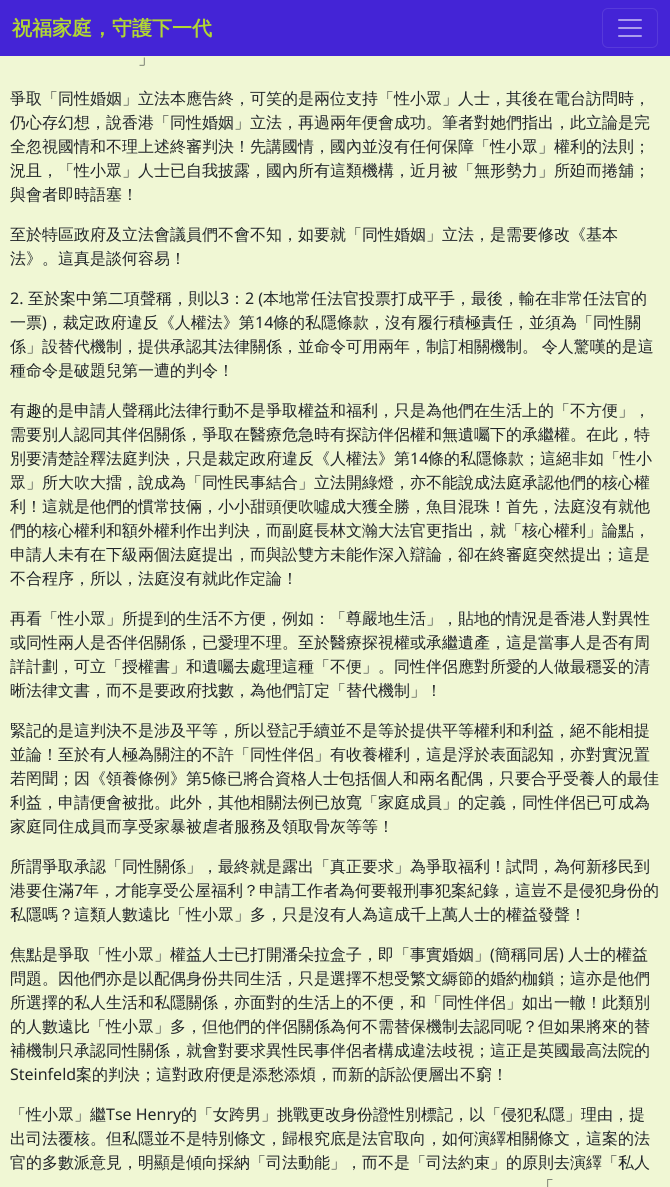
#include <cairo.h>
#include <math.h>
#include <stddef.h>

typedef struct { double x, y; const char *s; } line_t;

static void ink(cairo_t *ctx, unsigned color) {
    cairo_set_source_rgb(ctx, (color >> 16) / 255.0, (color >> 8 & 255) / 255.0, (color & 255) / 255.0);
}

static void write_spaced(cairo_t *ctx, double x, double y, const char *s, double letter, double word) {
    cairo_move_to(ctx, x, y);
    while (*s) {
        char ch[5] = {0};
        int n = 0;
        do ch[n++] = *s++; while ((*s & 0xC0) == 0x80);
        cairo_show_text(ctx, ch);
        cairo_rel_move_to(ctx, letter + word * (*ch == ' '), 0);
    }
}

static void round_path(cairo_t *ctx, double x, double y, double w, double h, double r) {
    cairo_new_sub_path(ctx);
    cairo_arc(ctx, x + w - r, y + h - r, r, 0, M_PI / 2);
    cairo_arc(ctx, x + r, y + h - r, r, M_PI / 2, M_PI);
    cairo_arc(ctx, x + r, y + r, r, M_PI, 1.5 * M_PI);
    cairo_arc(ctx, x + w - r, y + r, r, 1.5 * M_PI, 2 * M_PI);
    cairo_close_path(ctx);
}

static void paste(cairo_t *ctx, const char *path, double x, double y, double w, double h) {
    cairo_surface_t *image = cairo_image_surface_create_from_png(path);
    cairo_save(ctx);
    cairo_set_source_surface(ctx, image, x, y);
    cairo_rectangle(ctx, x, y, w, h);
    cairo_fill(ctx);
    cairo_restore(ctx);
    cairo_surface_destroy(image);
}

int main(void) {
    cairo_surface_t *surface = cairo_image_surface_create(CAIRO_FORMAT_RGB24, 670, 1187);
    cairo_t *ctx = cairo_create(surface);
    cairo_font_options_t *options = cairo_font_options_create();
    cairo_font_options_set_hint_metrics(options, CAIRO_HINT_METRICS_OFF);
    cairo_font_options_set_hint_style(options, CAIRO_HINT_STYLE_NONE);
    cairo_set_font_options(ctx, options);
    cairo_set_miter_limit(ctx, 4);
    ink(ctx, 0xF0F7D4);
    cairo_paint(ctx);
    ink(ctx, 0x4424D6);
    cairo_rectangle(ctx, 0, 0, 670, 56);
    cairo_fill(ctx);
    cairo_select_font_face(ctx, "WenQuanYi Zen Hei", CAIRO_FONT_SLANT_NORMAL, CAIRO_FONT_WEIGHT_BOLD);
    cairo_set_font_size(ctx, 20);
    ink(ctx, 0xB2D732);
    cairo_move_to(ctx, 12, 35);
    cairo_show_text(ctx, "祝福家庭，守護下一代");
    round_path(ctx, 602.5, 8.5, 55, 39, 5.5);
    ink(ctx, 0x573ADA);
    cairo_set_line_width(ctx, 1);
    cairo_stroke(ctx);
    paste(ctx, "media/1.png", 618, 19, 24, 18);
    cairo_select_font_face(ctx, "WenQuanYi Zen Hei Medium", CAIRO_FONT_SLANT_NORMAL, CAIRO_FONT_WEIGHT_NORMAL);
    cairo_set_font_size(ctx, 16);
    ink(ctx, 0x212529);
    {
        static const line_t items[] = {
            {138, 64, "」"},
            {10, 104, "爭取「同性婚姻」立法本應告終，可笑的是兩位支持「性小眾」人士，其後在電台訪問時，"},
            {10, 128, "仍心存幻想，說香港「同性婚姻」立法，再過兩年便會成功。筆者對她們指出，此立論是完"},
            {10, 152, "全忽視國情和不理上述終審判決！先講國情，國內並沒有任何保障「性小眾」權利的法則；"},
            {10, 176, "況且，「性小眾」人士已自我披露，國內所有這類機構，近月被「無形勢力」所廹而捲舖；"},
            {10, 200, "與會者即時語塞！"},
            {10, 240, "至於特區政府及立法會議員們不會不知，如要就「同性婚姻」立法，是需要修改《基本"},
            {10, 264, "法》。這真是談何容易！"},
        };
        for (size_t i = 0; i < sizeof items / sizeof *items; i++) {
            cairo_move_to(ctx, items[i].x, items[i].y);
            cairo_show_text(ctx, items[i].s);
        }
    }
    cairo_select_font_face(ctx, "Noto Sans", CAIRO_FONT_SLANT_NORMAL, CAIRO_FONT_WEIGHT_NORMAL);
    cairo_move_to(ctx, 10, 304);
    cairo_show_text(ctx, "2.");
    cairo_select_font_face(ctx, "WenQuanYi Zen Hei Medium", CAIRO_FONT_SLANT_NORMAL, CAIRO_FONT_WEIGHT_NORMAL);
    cairo_move_to(ctx, 28, 304);
    cairo_show_text(ctx, "至於案中第二項聲稱，則以");
    cairo_select_font_face(ctx, "Noto Sans", CAIRO_FONT_SLANT_NORMAL, CAIRO_FONT_WEIGHT_NORMAL);
    cairo_move_to(ctx, 220, 304);
    cairo_show_text(ctx, "3");
    cairo_select_font_face(ctx, "WenQuanYi Zen Hei Medium", CAIRO_FONT_SLANT_NORMAL, CAIRO_FONT_WEIGHT_NORMAL);
    cairo_move_to(ctx, 229, 304);
    cairo_show_text(ctx, "：");
    cairo_select_font_face(ctx, "Noto Sans", CAIRO_FONT_SLANT_NORMAL, CAIRO_FONT_WEIGHT_NORMAL);
    cairo_move_to(ctx, 245, 304);
    cairo_show_text(ctx, "2 (");
    cairo_select_font_face(ctx, "WenQuanYi Zen Hei Medium", CAIRO_FONT_SLANT_NORMAL, CAIRO_FONT_WEIGHT_NORMAL);
    {
        static const line_t items[] = {
            {263, 304, "本地常任法官投票打成平手，最後，輸在非常任法官的"},
            {10, 328, "一票 ，裁定政府違反《人權法》第"},
            {273, 328, "條的私隱條款，沒有履行積極責任，並須為「同性關"},
        };
        for (size_t i = 0; i < sizeof items / sizeof *items; i++) {
            cairo_move_to(ctx, items[i].x, items[i].y);
            cairo_show_text(ctx, items[i].s);
        }
    }
    cairo_select_font_face(ctx, "Noto Sans", CAIRO_FONT_SLANT_NORMAL, CAIRO_FONT_WEIGHT_NORMAL);
    cairo_move_to(ctx, 42, 328);
    cairo_show_text(ctx, ")");
    cairo_move_to(ctx, 255, 328);
    cairo_show_text(ctx, "14");
    cairo_select_font_face(ctx, "WenQuanYi Zen Hei Medium", CAIRO_FONT_SLANT_NORMAL, CAIRO_FONT_WEIGHT_NORMAL);
    write_spaced(ctx, 10, 352, "係」設替代機制，提供承認其法律關係，並命令可用兩年，制訂相關機制。 令人驚嘆的是這", 0, -1);
    {
        static const line_t items[] = {
            {10, 376, "種命令是破題兒第一遭的判令！"},
            {10, 416, "有趣的是申請人聲稱此法律行動不是爭取權益和福利，只是為他們在生活上的「不方便」，"},
            {10, 440, "需要別人認同其伴侶關係，爭取在醫療危急時有探訪伴侶權和無遺囑下的承繼權。在此，特"},
            {10, 464, "別要清楚詮釋法庭判決，只是裁定政府違反《人權法》第"},
        };
        for (size_t i = 0; i < sizeof items / sizeof *items; i++) {
            cairo_move_to(ctx, items[i].x, items[i].y);
            cairo_show_text(ctx, items[i].s);
        }
    }
    cairo_select_font_face(ctx, "Noto Sans", CAIRO_FONT_SLANT_NORMAL, CAIRO_FONT_WEIGHT_NORMAL);
    cairo_move_to(ctx, 410, 464);
    cairo_show_text(ctx, "14");
    cairo_select_font_face(ctx, "WenQuanYi Zen Hei Medium", CAIRO_FONT_SLANT_NORMAL, CAIRO_FONT_WEIGHT_NORMAL);
    {
        static const line_t items[] = {
            {428, 464, "條的私隱條款；這絕非如「性小"},
            {10, 488, "眾」所大吹大擂，說成為「同性民事結合」立法開綠燈，亦不能說成法庭承認他們的核心權"},
            {10, 512, "利！這就是他們的慣常技倆，小小甜頭便吹噓成大獲全勝，魚目混珠！首先，法庭沒有就他"},
            {10, 536, "們的核心權利和額外權利作出判決，而副庭長林文瀚大法官更指出，就「核心權利」論點，"},
            {10, 560, "申請人未有在下級兩個法庭提出，而與訟雙方未能作深入辯論，卻在終審庭突然提出；這是"},
            {10, 584, "不合程序，所以，法庭沒有就此作定論！"},
            {10, 624, "再看「性小眾」所提到的生活不方便，例如：「尊嚴地生活」，貼地的情況是香港人對異性"},
            {10, 648, "或同性兩人是否伴侶關係，已愛理不理。至於醫療探視權或承繼遺產，這是當事人是否有周"},
            {10, 672, "詳計劃，可立「授權書」和遺囑去處理這種「不便」。同性伴侶應對所愛的人做最穩妥的清"},
            {10, 696, "晰法律文書，而不是要政府找數，為他們訂定「替代機制」！"},
            {10, 736, "緊記的是這判決不是涉及平等，所以登記手續並不是等於提供平等權利和利益，絕不能相提"},
            {10, 760, "並論！至於有人極為關注的不許「同性伴侶」有收養權利，這是浮於表面認知，亦對實況置"},
            {10, 784, "若罔聞；因《領養條例》第"},
        };
        for (size_t i = 0; i < sizeof items / sizeof *items; i++) {
            cairo_move_to(ctx, items[i].x, items[i].y);
            cairo_show_text(ctx, items[i].s);
        }
    }
    cairo_select_font_face(ctx, "Noto Sans", CAIRO_FONT_SLANT_NORMAL, CAIRO_FONT_WEIGHT_NORMAL);
    cairo_move_to(ctx, 202, 784);
    cairo_show_text(ctx, "5");
    cairo_select_font_face(ctx, "WenQuanYi Zen Hei Medium", CAIRO_FONT_SLANT_NORMAL, CAIRO_FONT_WEIGHT_NORMAL);
    {
        static const line_t items[] = {
            {211, 784, "條已將合資格人士包括個人和兩名配偶，只要合乎受養人的最佳"},
            {10, 808, "利益，申請便會被批。此外，其他相關法例已放寬「家庭成員」的定義，同性伴侶已可成為"},
            {10, 832, "家庭同住成員而享受家暴被虐者服務及領取骨灰等等！"},
            {10, 872, "所謂爭取承認「同性關係」，最終就是露出「真正要求」為爭取福利！試問，為何新移民到"},
            {10, 896, "港要住滿"},
        };
        for (size_t i = 0; i < sizeof items / sizeof *items; i++) {
            cairo_move_to(ctx, items[i].x, items[i].y);
            cairo_show_text(ctx, items[i].s);
        }
    }
    cairo_select_font_face(ctx, "Noto Sans", CAIRO_FONT_SLANT_NORMAL, CAIRO_FONT_WEIGHT_NORMAL);
    cairo_move_to(ctx, 74, 896);
    cairo_show_text(ctx, "7");
    cairo_select_font_face(ctx, "WenQuanYi Zen Hei Medium", CAIRO_FONT_SLANT_NORMAL, CAIRO_FONT_WEIGHT_NORMAL);
    {
        static const line_t items[] = {
            {83, 896, "年，才能享受公屋福利？申請工作者為何要報刑事犯案紀錄，這豈不是侵犯身份的"},
            {10, 920, "私隱嗎？這類人數遠比「性小眾」多，只是沒有人為這成千上萬人士的權益發聲！"},
            {10, 960, "焦點是爭取「性小眾」權益人士已打開潘朵拉盒子，即「事實婚姻」 簡稱同居"},
            {568, 960, "人士的權益"},
        };
        for (size_t i = 0; i < sizeof items / sizeof *items; i++) {
            cairo_move_to(ctx, items[i].x, items[i].y);
            cairo_show_text(ctx, items[i].s);
        }
    }
    cairo_select_font_face(ctx, "Noto Sans", CAIRO_FONT_SLANT_NORMAL, CAIRO_FONT_WEIGHT_NORMAL);
    cairo_move_to(ctx, 490, 960);
    cairo_show_text(ctx, "(");
    cairo_move_to(ctx, 559, 960);
    cairo_show_text(ctx, ")");
    cairo_select_font_face(ctx, "WenQuanYi Zen Hei Medium", CAIRO_FONT_SLANT_NORMAL, CAIRO_FONT_WEIGHT_NORMAL);
    {
        static const line_t items[] = {
            {10, 984, "問題。因他們亦是以配偶身份共同生活，只是選擇不想受繁文縟節的婚約枷鎖；這亦是他們"},
            {10, 1008, "所選擇的私人生活和私隱關係，亦面對的生活上的不便，和「同性伴侶」如出一轍！此類別"},
            {10, 1032, "的人數遠比「性小眾」多，但他們的伴侶關係為何不需替保機制去認同呢？但如果將來的替"},
            {10, 1056, "補機制只承認同性關係，就會對要求異性民事伴侶者構成違法歧視；這正是英國最高法院的"},
        };
        for (size_t i = 0; i < sizeof items / sizeof *items; i++) {
            cairo_move_to(ctx, items[i].x, items[i].y);
            cairo_show_text(ctx, items[i].s);
        }
    }
    cairo_select_font_face(ctx, "Noto Sans", CAIRO_FONT_SLANT_NORMAL, CAIRO_FONT_WEIGHT_NORMAL);
    cairo_move_to(ctx, 10, 1080);
    cairo_show_text(ctx, "Steinfeld");
    cairo_select_font_face(ctx, "WenQuanYi Zen Hei Medium", CAIRO_FONT_SLANT_NORMAL, CAIRO_FONT_WEIGHT_NORMAL);
    cairo_move_to(ctx, 76, 1080);
    cairo_show_text(ctx, "案的判決；這對政府便是添愁添煩，而新的訴訟便層出不窮！");
    cairo_move_to(ctx, 10, 1120);
    cairo_show_text(ctx, "「性小眾」繼");
    cairo_select_font_face(ctx, "Noto Sans", CAIRO_FONT_SLANT_NORMAL, CAIRO_FONT_WEIGHT_NORMAL);
    cairo_move_to(ctx, 106, 1120);
    cairo_show_text(ctx, "Tse Henry");
    cairo_select_font_face(ctx, "WenQuanYi Zen Hei Medium", CAIRO_FONT_SLANT_NORMAL, CAIRO_FONT_WEIGHT_NORMAL);
    {
        static const line_t items[] = {
            {181, 1120, "的「女跨男」挑戰更改身份證性別標記，以「侵犯私隱」理由，提"},
            {10, 1144, "出司法覆核。但私隱並不是特別條文，歸根究底是法官取向，如何演繹相關條文，這案的法"},
            {10, 1168, "官的多數派意見，明顯是傾向採納「司法動能」，而不是「司法約束」的原則去演繹「私人"},
            {538, 1192, "「"},
        };
        for (size_t i = 0; i < sizeof items / sizeof *items; i++) {
            cairo_move_to(ctx, items[i].x, items[i].y);
            cairo_show_text(ctx, items[i].s);
        }
    }
    cairo_surface_write_to_png(surface, "image.png");
    cairo_font_options_destroy(options);
    cairo_destroy(ctx);
    cairo_surface_destroy(surface);
    return 0;
}
